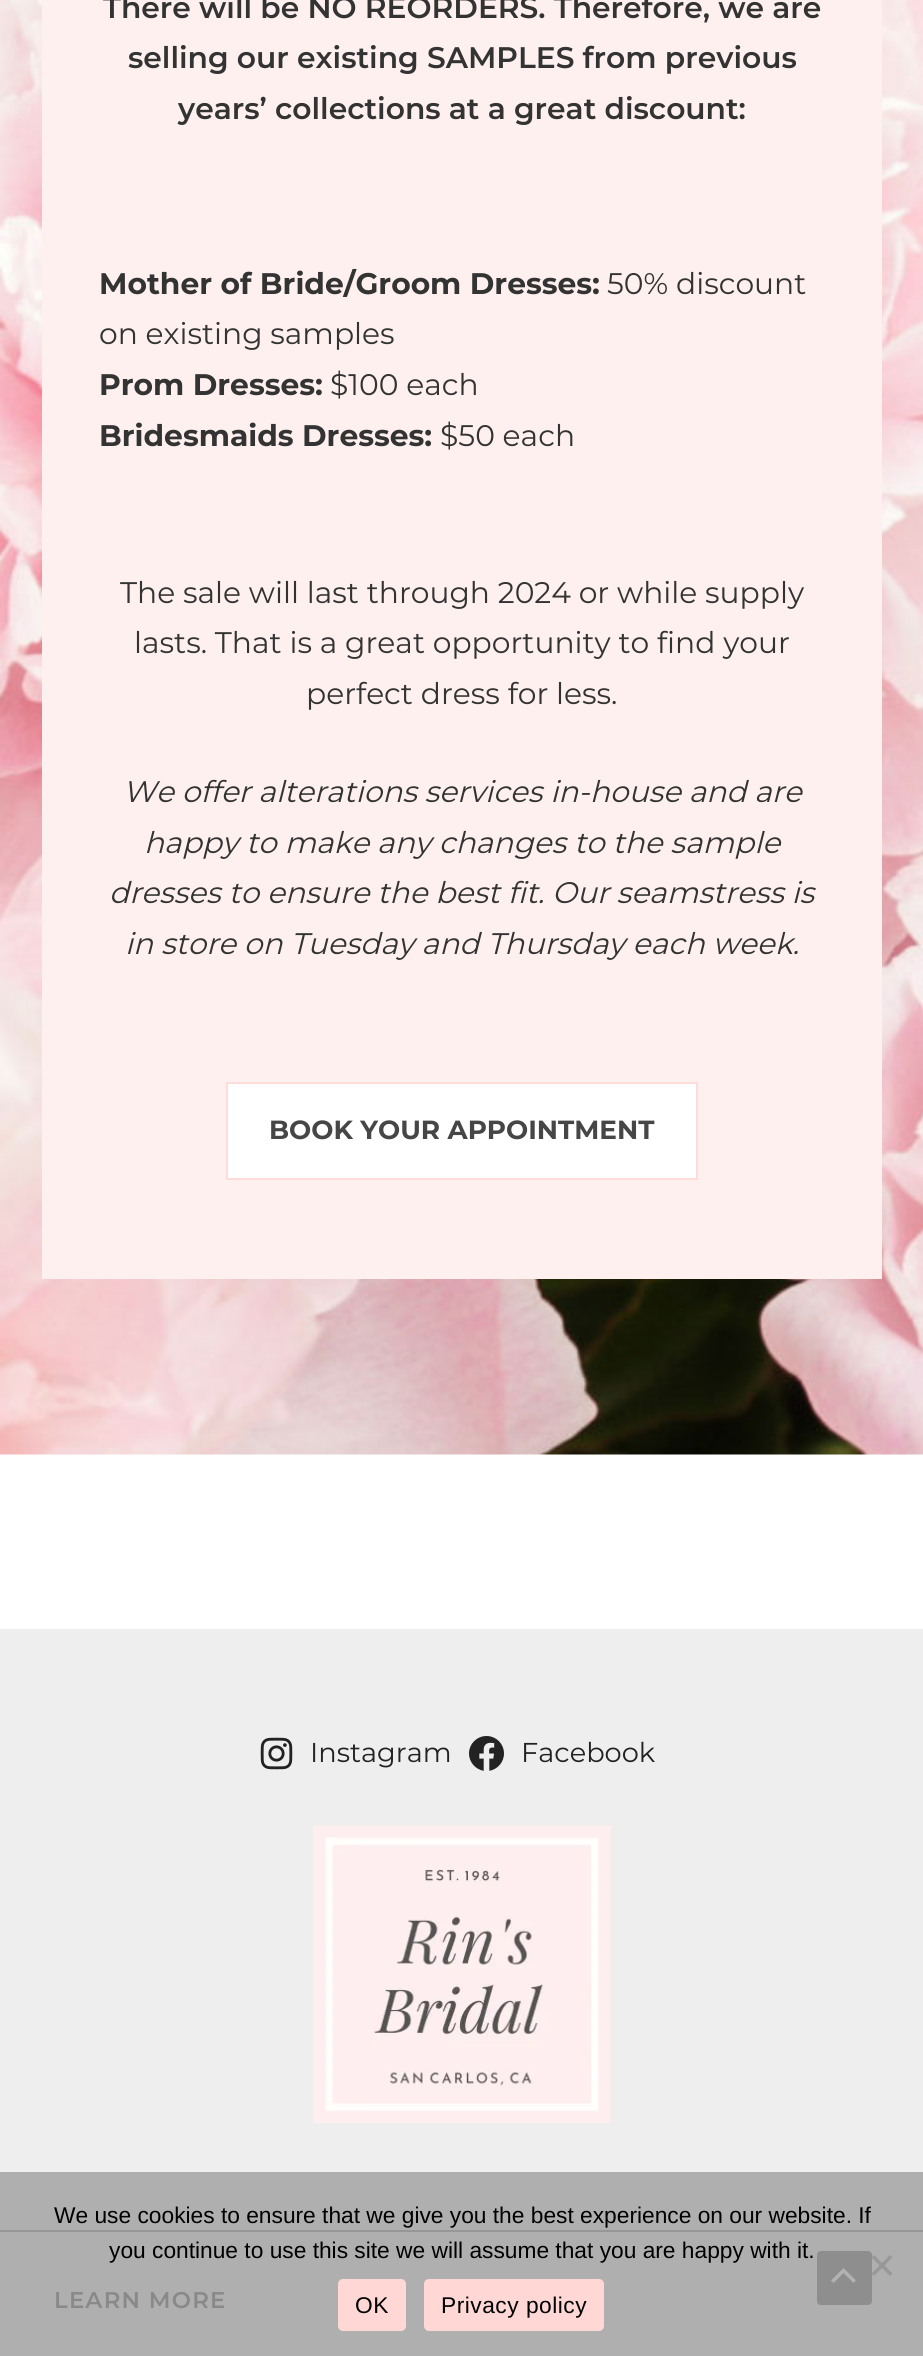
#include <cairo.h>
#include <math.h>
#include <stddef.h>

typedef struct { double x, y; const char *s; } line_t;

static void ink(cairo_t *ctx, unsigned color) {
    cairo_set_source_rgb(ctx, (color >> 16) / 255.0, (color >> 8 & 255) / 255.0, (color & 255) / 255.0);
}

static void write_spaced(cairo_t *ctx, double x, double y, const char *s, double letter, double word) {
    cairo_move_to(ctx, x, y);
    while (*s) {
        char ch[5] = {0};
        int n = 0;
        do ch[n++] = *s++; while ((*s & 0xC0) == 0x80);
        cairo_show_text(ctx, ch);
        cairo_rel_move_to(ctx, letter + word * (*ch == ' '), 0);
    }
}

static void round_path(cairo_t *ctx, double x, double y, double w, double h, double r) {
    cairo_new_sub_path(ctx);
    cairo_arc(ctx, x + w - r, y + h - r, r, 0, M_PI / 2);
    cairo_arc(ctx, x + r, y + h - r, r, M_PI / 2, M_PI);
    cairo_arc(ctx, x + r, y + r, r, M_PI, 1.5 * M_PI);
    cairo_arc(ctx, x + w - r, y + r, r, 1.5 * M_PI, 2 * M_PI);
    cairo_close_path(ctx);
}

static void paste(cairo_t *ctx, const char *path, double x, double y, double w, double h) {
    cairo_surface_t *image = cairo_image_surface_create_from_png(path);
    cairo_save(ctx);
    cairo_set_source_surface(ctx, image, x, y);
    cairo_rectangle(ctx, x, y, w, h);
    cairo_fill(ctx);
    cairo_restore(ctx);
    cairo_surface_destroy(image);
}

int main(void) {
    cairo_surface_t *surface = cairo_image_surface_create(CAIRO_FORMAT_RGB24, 923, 2356);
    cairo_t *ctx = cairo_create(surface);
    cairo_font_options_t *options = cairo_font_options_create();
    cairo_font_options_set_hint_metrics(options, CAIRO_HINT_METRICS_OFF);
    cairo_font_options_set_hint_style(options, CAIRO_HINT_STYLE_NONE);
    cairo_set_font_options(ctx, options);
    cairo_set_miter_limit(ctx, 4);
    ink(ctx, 0xFFFFFF);
    cairo_paint(ctx);
    paste(ctx, "media/1.png", 0, 0, 923, 1455);
    ink(ctx, 0xFEF0EF);
    cairo_rectangle(ctx, 42, 0, 840, 1279);
    cairo_fill(ctx);
    cairo_select_font_face(ctx, "Montserrat SemiBold", CAIRO_FONT_SLANT_NORMAL, CAIRO_FONT_WEIGHT_NORMAL);
    cairo_set_font_size(ctx, 29.75);
    ink(ctx, 0x333333);
    {
        static const line_t items[] = {
            {103, 18, "There will be NO REORDERS. Therefore, we are"},
            {128, 68, "selling our existing SAMPLES from previous"},
            {178, 119, "years’ collections at a great discount:"},
        };
        for (size_t i = 0; i < sizeof items / sizeof *items; i++) {
            cairo_move_to(ctx, items[i].x, items[i].y);
            cairo_show_text(ctx, items[i].s);
        }
    }
    cairo_select_font_face(ctx, "Montserrat", CAIRO_FONT_SLANT_NORMAL, CAIRO_FONT_WEIGHT_BOLD);
    cairo_move_to(ctx, 99, 294);
    cairo_show_text(ctx, "Mother of Bride/Groom Dresses:");
    cairo_select_font_face(ctx, "Montserrat", CAIRO_FONT_SLANT_NORMAL, CAIRO_FONT_WEIGHT_NORMAL);
    cairo_move_to(ctx, 607, 294);
    cairo_show_text(ctx, "50% discount");
    cairo_move_to(ctx, 99, 344);
    cairo_show_text(ctx, "on existing samples");
    cairo_select_font_face(ctx, "Montserrat", CAIRO_FONT_SLANT_NORMAL, CAIRO_FONT_WEIGHT_BOLD);
    cairo_move_to(ctx, 99, 395);
    cairo_show_text(ctx, "Prom Dresses:");
    cairo_select_font_face(ctx, "Montserrat", CAIRO_FONT_SLANT_NORMAL, CAIRO_FONT_WEIGHT_NORMAL);
    cairo_move_to(ctx, 330, 395);
    cairo_show_text(ctx, "$100 each");
    cairo_select_font_face(ctx, "Montserrat", CAIRO_FONT_SLANT_NORMAL, CAIRO_FONT_WEIGHT_BOLD);
    cairo_move_to(ctx, 99, 446);
    cairo_show_text(ctx, "Bridesmaids Dresses:");
    cairo_select_font_face(ctx, "Montserrat", CAIRO_FONT_SLANT_NORMAL, CAIRO_FONT_WEIGHT_NORMAL);
    {
        static const line_t items[] = {
            {440, 446, "$50 each"},
            {120, 603, "The sale will last through 2024 or while supply"},
            {134, 653, "lasts. That is a great opportunity to find your"},
            {306, 704, "perfect dress for less."},
        };
        for (size_t i = 0; i < sizeof items / sizeof *items; i++) {
            cairo_move_to(ctx, items[i].x, items[i].y);
            cairo_show_text(ctx, items[i].s);
        }
    }
    cairo_select_font_face(ctx, "Montserrat", CAIRO_FONT_SLANT_ITALIC, CAIRO_FONT_WEIGHT_NORMAL);
    {
        static const line_t items[] = {
            {123, 802, "We offer alterations services in-house and are"},
            {144, 853, "happy to make any changes to the sample"},
            {109, 903, "dresses to ensure the best fit. Our seamstress is"},
            {125, 954, "in store on Tuesday and Thursday each week."},
        };
        for (size_t i = 0; i < sizeof items / sizeof *items; i++) {
            cairo_move_to(ctx, items[i].x, items[i].y);
            cairo_show_text(ctx, items[i].s);
        }
    }
    ink(ctx, 0xFFFFFF);
    cairo_rectangle(ctx, 227, 1083, 470, 96);
    cairo_fill_preserve(ctx);
    ink(ctx, 0xFFDCD9);
    cairo_stroke(ctx);
    cairo_select_font_face(ctx, "Montserrat", CAIRO_FONT_SLANT_NORMAL, CAIRO_FONT_WEIGHT_BOLD);
    cairo_set_font_size(ctx, 26.25);
    ink(ctx, 0x464646);
    cairo_move_to(ctx, 269, 1139);
    cairo_show_text(ctx, "BOOK YOUR APPOINTMENT");
    ink(ctx, 0xEEEEEE);
    cairo_rectangle(ctx, 0, 1629, 923, 543);
    cairo_fill(ctx);
    ink(ctx, 0xAFAFAF);
    cairo_rectangle(ctx, 0, 2172, 923, 58);
    cairo_fill(ctx);
    paste(ctx, "media/2.png", 260, 1737, 33, 33);
    cairo_select_font_face(ctx, "Montserrat", CAIRO_FONT_SLANT_NORMAL, CAIRO_FONT_WEIGHT_NORMAL);
    cairo_set_font_size(ctx, 27.25);
    ink(ctx, 0x222222);
    cairo_move_to(ctx, 310, 1762);
    cairo_show_text(ctx, "Instagram");
    paste(ctx, "media/3.png", 469, 1736, 35, 35);
    cairo_move_to(ctx, 521, 1762);
    cairo_show_text(ctx, "Facebook");
    paste(ctx, "media/4.png", 313, 1825, 298, 298);
    ink(ctx, 0xAFAFAF);
    cairo_rectangle(ctx, 0, 2232, 923, 124);
    cairo_fill(ctx);
    ink(ctx, 0x969799);
    cairo_rectangle(ctx, 0, 2230, 923, 2);
    cairo_fill(ctx);
    cairo_select_font_face(ctx, "Montserrat SemiBold", CAIRO_FONT_SLANT_NORMAL, CAIRO_FONT_WEIGHT_NORMAL);
    cairo_set_font_size(ctx, 22.75);
    ink(ctx, 0x898989);
    write_spaced(ctx, 54, 2308, "LEARN MORE", 1.25, 0);
    cairo_select_font_face(ctx, "Liberation Sans", CAIRO_FONT_SLANT_NORMAL, CAIRO_FONT_WEIGHT_NORMAL);
    ink(ctx, 0x000000);
    cairo_move_to(ctx, 54, 2223);
    cairo_show_text(ctx, "We use cookies to ensure that we give you the best experience on our website. If");
    cairo_move_to(ctx, 109, 2258);
    cairo_show_text(ctx, "you continue to use this site we will assume that you are happy with it.");
    ink(ctx, 0x8E8E8E);
    round_path(ctx, 817, 2251, 55, 54, 4);
    cairo_fill(ctx);
    ink(ctx, 0x989898);
    cairo_new_path(ctx);
    cairo_move_to(ctx, 890, 2255);
    cairo_line_to(ctx, 892.5, 2257.5);
    cairo_line_to(ctx, 874, 2276);
    cairo_line_to(ctx, 871.5, 2273.5);
    cairo_close_path(ctx);
    cairo_fill(ctx);
    cairo_new_path(ctx);
    cairo_move_to(ctx, 871.5, 2257.5);
    cairo_line_to(ctx, 874, 2255);
    cairo_line_to(ctx, 892.5, 2273.5);
    cairo_line_to(ctx, 890, 2276);
    cairo_close_path(ctx);
    cairo_fill(ctx);
    ink(ctx, 0xFFD8D6);
    round_path(ctx, 338, 2279, 68, 52, 5);
    cairo_fill(ctx);
    ink(ctx, 0x000000);
    write_spaced(ctx, 355, 2313, "OK", 0.5, 0);
    ink(ctx, 0xFFD8D6);
    round_path(ctx, 424, 2279, 180, 52, 5);
    cairo_fill(ctx);
    ink(ctx, 0x000000);
    write_spaced(ctx, 441, 2313, "Privacy policy", 0.5, 0);
    ink(ctx, 0xB2B2B2);
    cairo_new_path(ctx);
    cairo_move_to(ctx, 856, 2280.5);
    cairo_line_to(ctx, 843.5, 2268);
    cairo_line_to(ctx, 831, 2280.5);
    cairo_line_to(ctx, 833.5, 2283);
    cairo_line_to(ctx, 843.5, 2273);
    cairo_line_to(ctx, 853.5, 2283);
    cairo_close_path(ctx);
    cairo_fill(ctx);
    cairo_surface_write_to_png(surface, "image.png");
    cairo_font_options_destroy(options);
    cairo_destroy(ctx);
    cairo_surface_destroy(surface);
    return 0;
}
